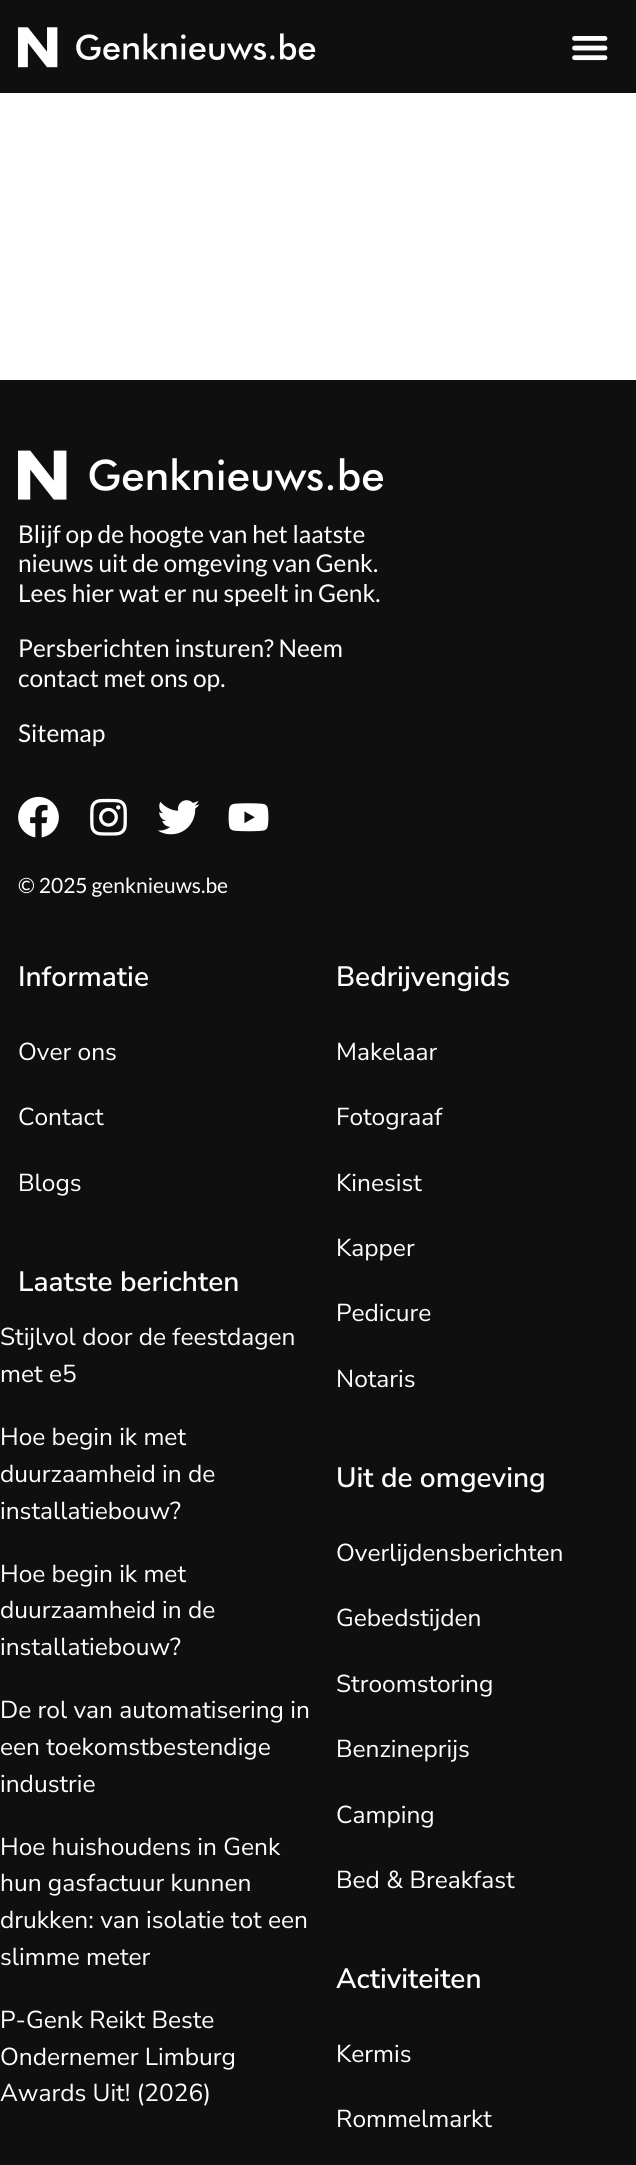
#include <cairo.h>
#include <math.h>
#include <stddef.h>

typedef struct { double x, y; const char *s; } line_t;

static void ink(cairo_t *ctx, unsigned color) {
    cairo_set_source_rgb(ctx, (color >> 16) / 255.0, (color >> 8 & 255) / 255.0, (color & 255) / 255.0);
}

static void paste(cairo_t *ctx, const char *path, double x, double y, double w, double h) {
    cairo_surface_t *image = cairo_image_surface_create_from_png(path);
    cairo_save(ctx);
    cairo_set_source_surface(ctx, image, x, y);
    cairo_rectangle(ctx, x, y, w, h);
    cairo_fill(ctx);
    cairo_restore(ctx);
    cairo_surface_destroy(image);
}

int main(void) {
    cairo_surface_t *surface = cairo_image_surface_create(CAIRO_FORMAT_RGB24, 636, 2165);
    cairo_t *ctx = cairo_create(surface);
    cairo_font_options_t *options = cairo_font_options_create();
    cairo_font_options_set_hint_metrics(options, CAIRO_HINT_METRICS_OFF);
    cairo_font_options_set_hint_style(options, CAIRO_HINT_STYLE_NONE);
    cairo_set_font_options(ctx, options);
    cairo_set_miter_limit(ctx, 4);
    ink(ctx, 0xFFFFFF);
    cairo_paint(ctx);
    ink(ctx, 0x0F0F0F);
    cairo_rectangle(ctx, 0, 0, 636, 93);
    cairo_fill(ctx);
    paste(ctx, "media/1.png", 18, 27, 298, 41);
    paste(ctx, "media/2.png", 572, 36, 36, 25);
    cairo_rectangle(ctx, 0, 380, 636, 1785);
    cairo_fill(ctx);
    paste(ctx, "media/3.png", 18, 450, 366, 50);
    cairo_select_font_face(ctx, "Lato", CAIRO_FONT_SLANT_NORMAL, CAIRO_FONT_WEIGHT_NORMAL);
    cairo_set_font_size(ctx, 24.5);
    ink(ctx, 0xFFFFFF);
    {
        static const line_t items[] = {
            {18, 543, "Blijf op de hoogte van het laatste"},
            {18, 572, "nieuws uit de omgeving van Genk."},
            {18, 602, "Lees hier wat er nu speelt in Genk."},
            {18, 657, "Persberichten insturen? Neem"},
            {18, 687, "contact met ons op."},
            {18, 742, "Sitemap"},
        };
        for (size_t i = 0; i < sizeof items / sizeof *items; i++) {
            cairo_move_to(ctx, items[i].x, items[i].y);
            cairo_show_text(ctx, items[i].s);
        }
    }
    paste(ctx, "media/4.png", 18, 796, 41, 42);
    paste(ctx, "media/5.png", 90, 798, 37, 38);
    paste(ctx, "media/6.png", 158, 800, 42, 35);
    paste(ctx, "media/7.png", 228, 803, 41, 29);
    cairo_set_font_size(ctx, 21);
    cairo_move_to(ctx, 18, 893);
    cairo_show_text(ctx, "© 2025 genknieuws.be");
    cairo_select_font_face(ctx, "Nunito Sans SemiBold", CAIRO_FONT_SLANT_NORMAL, CAIRO_FONT_WEIGHT_NORMAL);
    cairo_set_font_size(ctx, 28);
    cairo_move_to(ctx, 18, 986);
    cairo_show_text(ctx, "Informatie");
    cairo_select_font_face(ctx, "Nunito Sans", CAIRO_FONT_SLANT_NORMAL, CAIRO_FONT_WEIGHT_NORMAL);
    cairo_set_font_size(ctx, 24.5);
    {
        static const line_t items[] = {
            {18, 1060, "Over ons"},
            {18, 1125, "Contact"},
            {18, 1191, "Blogs"},
        };
        for (size_t i = 0; i < sizeof items / sizeof *items; i++) {
            cairo_move_to(ctx, items[i].x, items[i].y);
            cairo_show_text(ctx, items[i].s);
        }
    }
    cairo_select_font_face(ctx, "Nunito Sans SemiBold", CAIRO_FONT_SLANT_NORMAL, CAIRO_FONT_WEIGHT_NORMAL);
    cairo_set_font_size(ctx, 28);
    cairo_move_to(ctx, 18, 1291);
    cairo_show_text(ctx, "Laatste berichten");
    cairo_select_font_face(ctx, "Nunito Sans", CAIRO_FONT_SLANT_NORMAL, CAIRO_FONT_WEIGHT_NORMAL);
    cairo_set_font_size(ctx, 24.5);
    {
        static const line_t items[] = {
            {0, 1345, "Stijlvol door de feestdagen"},
            {0, 1382, "met e5"},
            {0, 1445, "Hoe begin ik met"},
            {0, 1482, "duurzaamheid in de"},
            {0, 1519, "installatiebouw?"},
            {0, 1582, "Hoe begin ik met"},
            {0, 1618, "duurzaamheid in de"},
            {0, 1655, "installatiebouw?"},
            {0, 1718, "De rol van automatisering in"},
            {0, 1755, "een toekomstbestendige"},
            {0, 1792, "industrie"},
            {0, 1855, "Hoe huishoudens in Genk"},
            {0, 1891, "hun gasfactuur kunnen"},
            {0, 1928, "drukken: van isolatie tot een"},
            {0, 1965, "slimme meter"},
            {0, 2028, "P-Genk Reikt Beste"},
            {0, 2065, "Ondernemer Limburg"},
            {0, 2101, "Awards Uit! (2026)"},
        };
        for (size_t i = 0; i < sizeof items / sizeof *items; i++) {
            cairo_move_to(ctx, items[i].x, items[i].y);
            cairo_show_text(ctx, items[i].s);
        }
    }
    cairo_select_font_face(ctx, "Nunito Sans SemiBold", CAIRO_FONT_SLANT_NORMAL, CAIRO_FONT_WEIGHT_NORMAL);
    cairo_set_font_size(ctx, 28);
    cairo_move_to(ctx, 336, 986);
    cairo_show_text(ctx, "Bedrijvengids");
    cairo_select_font_face(ctx, "Nunito Sans", CAIRO_FONT_SLANT_NORMAL, CAIRO_FONT_WEIGHT_NORMAL);
    cairo_set_font_size(ctx, 24.5);
    {
        static const line_t items[] = {
            {336, 1060, "Makelaar"},
            {336, 1125, "Fotograaf"},
            {336, 1191, "Kinesist"},
            {336, 1256, "Kapper"},
            {336, 1321, "Pedicure"},
            {336, 1387, "Notaris"},
        };
        for (size_t i = 0; i < sizeof items / sizeof *items; i++) {
            cairo_move_to(ctx, items[i].x, items[i].y);
            cairo_show_text(ctx, items[i].s);
        }
    }
    cairo_select_font_face(ctx, "Nunito Sans SemiBold", CAIRO_FONT_SLANT_NORMAL, CAIRO_FONT_WEIGHT_NORMAL);
    cairo_set_font_size(ctx, 28);
    cairo_move_to(ctx, 336, 1487);
    cairo_show_text(ctx, "Uit de omgeving");
    cairo_select_font_face(ctx, "Nunito Sans", CAIRO_FONT_SLANT_NORMAL, CAIRO_FONT_WEIGHT_NORMAL);
    cairo_set_font_size(ctx, 24.5);
    {
        static const line_t items[] = {
            {336, 1561, "Overlijdensberichten"},
            {336, 1626, "Gebedstijden"},
            {336, 1692, "Stroomstoring"},
            {336, 1757, "Benzineprijs"},
            {336, 1823, "Camping"},
            {336, 1888, "Bed & Breakfast"},
        };
        for (size_t i = 0; i < sizeof items / sizeof *items; i++) {
            cairo_move_to(ctx, items[i].x, items[i].y);
            cairo_show_text(ctx, items[i].s);
        }
    }
    cairo_select_font_face(ctx, "Nunito Sans SemiBold", CAIRO_FONT_SLANT_NORMAL, CAIRO_FONT_WEIGHT_NORMAL);
    cairo_set_font_size(ctx, 28);
    cairo_move_to(ctx, 336, 1988);
    cairo_show_text(ctx, "Activiteiten");
    cairo_select_font_face(ctx, "Nunito Sans", CAIRO_FONT_SLANT_NORMAL, CAIRO_FONT_WEIGHT_NORMAL);
    cairo_set_font_size(ctx, 24.5);
    cairo_move_to(ctx, 336, 2062);
    cairo_show_text(ctx, "Kermis");
    cairo_move_to(ctx, 336, 2127);
    cairo_show_text(ctx, "Rommelmarkt");
    cairo_surface_write_to_png(surface, "image.png");
    cairo_font_options_destroy(options);
    cairo_destroy(ctx);
    cairo_surface_destroy(surface);
    return 0;
}
